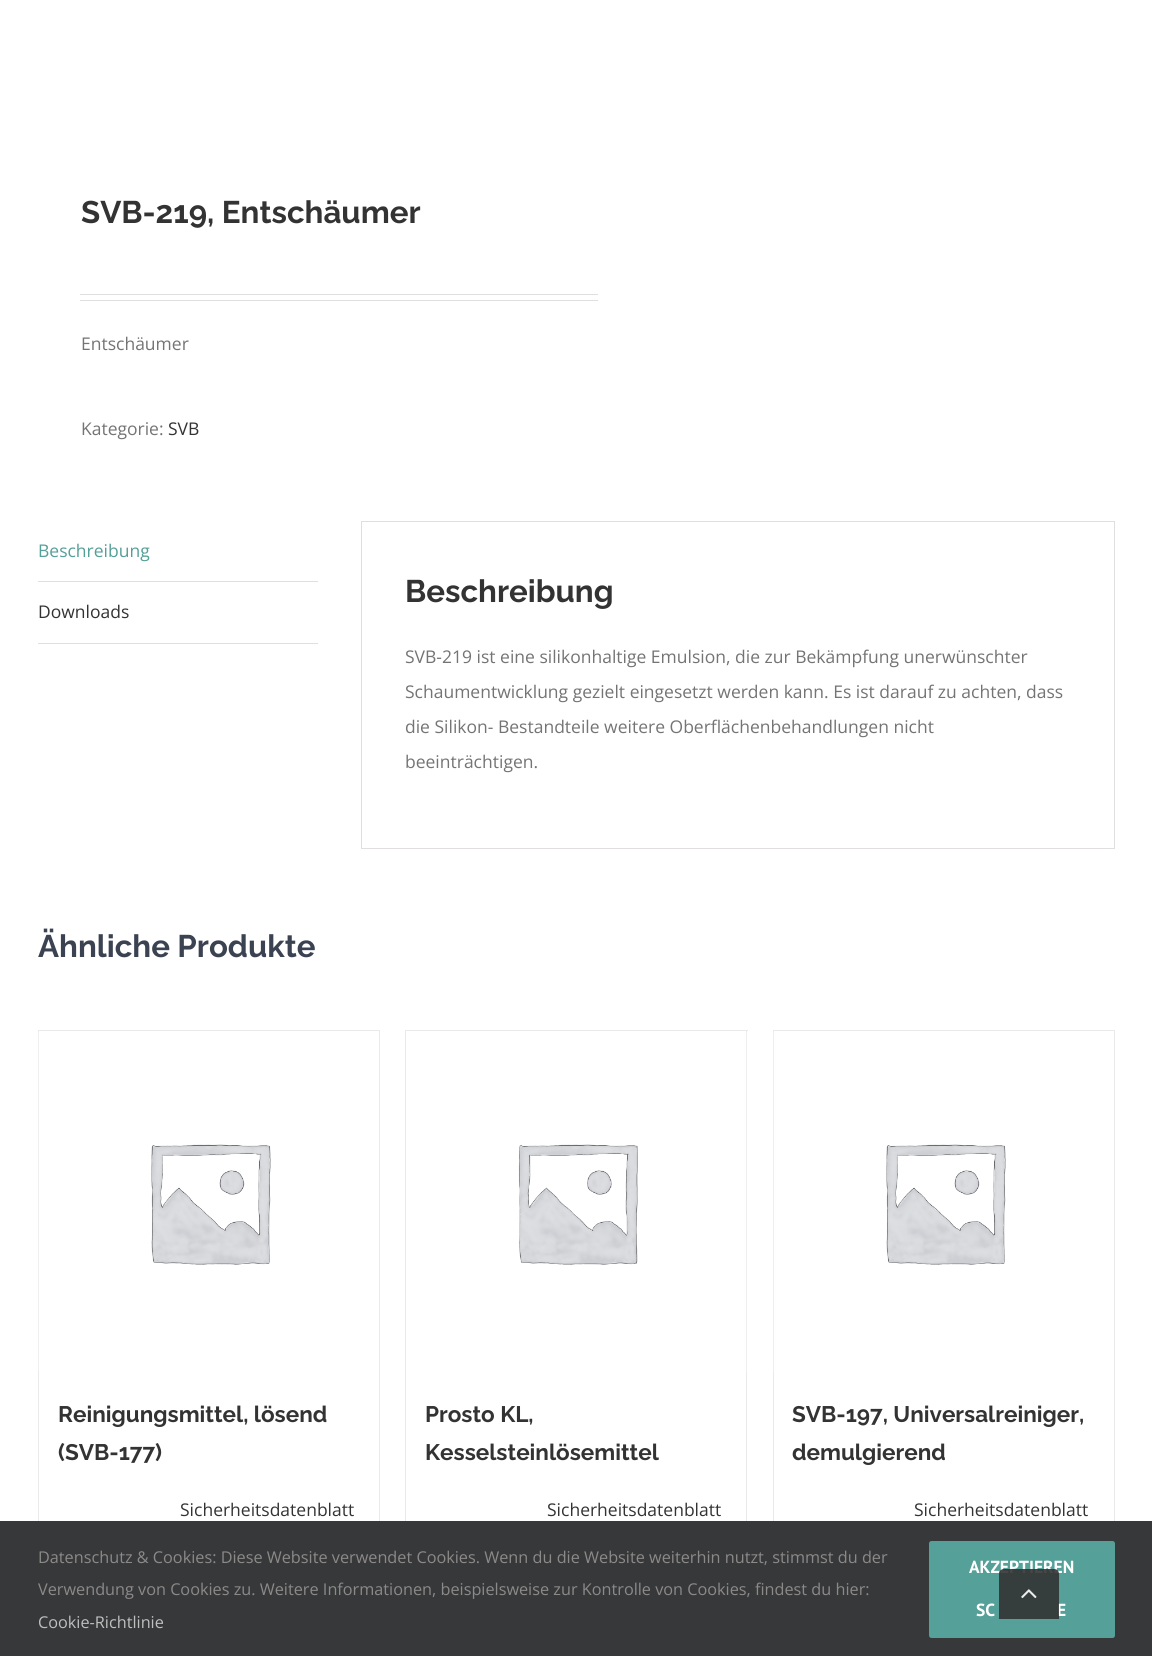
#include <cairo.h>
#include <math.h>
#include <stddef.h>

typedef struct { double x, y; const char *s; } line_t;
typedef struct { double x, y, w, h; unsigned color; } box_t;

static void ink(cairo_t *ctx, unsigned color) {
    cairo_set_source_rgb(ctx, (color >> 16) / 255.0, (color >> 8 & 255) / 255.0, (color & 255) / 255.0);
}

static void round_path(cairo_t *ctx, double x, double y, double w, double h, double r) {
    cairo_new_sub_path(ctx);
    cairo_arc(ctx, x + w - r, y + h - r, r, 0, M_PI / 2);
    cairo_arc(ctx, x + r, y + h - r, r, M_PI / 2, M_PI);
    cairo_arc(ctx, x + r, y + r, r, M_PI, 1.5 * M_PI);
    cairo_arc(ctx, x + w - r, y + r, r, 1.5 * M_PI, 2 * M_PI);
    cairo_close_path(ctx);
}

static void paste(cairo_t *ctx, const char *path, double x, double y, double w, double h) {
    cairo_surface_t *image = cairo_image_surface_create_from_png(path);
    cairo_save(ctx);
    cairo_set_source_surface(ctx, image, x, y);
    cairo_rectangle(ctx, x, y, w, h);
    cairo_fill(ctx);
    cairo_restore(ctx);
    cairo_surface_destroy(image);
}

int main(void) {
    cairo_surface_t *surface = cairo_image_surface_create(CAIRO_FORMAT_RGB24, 1152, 1656);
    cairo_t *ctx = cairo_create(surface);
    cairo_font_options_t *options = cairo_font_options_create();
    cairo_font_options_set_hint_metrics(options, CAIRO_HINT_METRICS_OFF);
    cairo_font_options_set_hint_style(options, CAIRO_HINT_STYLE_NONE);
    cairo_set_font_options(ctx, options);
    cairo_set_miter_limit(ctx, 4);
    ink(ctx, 0xFFFFFF);
    cairo_paint(ctx);
    cairo_select_font_face(ctx, "Raleway Thin", CAIRO_FONT_SLANT_NORMAL, CAIRO_FONT_WEIGHT_NORMAL);
    cairo_set_font_size(ctx, 31.25);
    ink(ctx, 0x333333);
    cairo_move_to(ctx, 81, 223);
    cairo_show_text(ctx, "SVB-219, Entschäumer");
    ink(ctx, 0xE0DEDE);
    cairo_rectangle(ctx, 80, 294, 518, 1);
    cairo_fill(ctx);
    cairo_rectangle(ctx, 80, 300, 518, 1);
    cairo_fill(ctx);
    cairo_select_font_face(ctx, "Open Sans", CAIRO_FONT_SLANT_NORMAL, CAIRO_FONT_WEIGHT_NORMAL);
    cairo_set_font_size(ctx, 17.5);
    ink(ctx, 0x747474);
    cairo_move_to(ctx, 81, 350);
    cairo_show_text(ctx, "Entschäumer");
    cairo_move_to(ctx, 81, 435);
    cairo_show_text(ctx, "Kategorie:");
    ink(ctx, 0x333333);
    cairo_move_to(ctx, 168, 435);
    cairo_show_text(ctx, "SVB");
    ink(ctx, 0xE0DEDE);
    cairo_rectangle(ctx, 38, 581, 280, 1);
    cairo_fill(ctx);
    ink(ctx, 0x549F97);
    cairo_move_to(ctx, 38, 557);
    cairo_show_text(ctx, "Beschreibung");
    ink(ctx, 0xE0DEDE);
    cairo_rectangle(ctx, 38, 643, 280, 1);
    cairo_fill(ctx);
    ink(ctx, 0x333333);
    cairo_move_to(ctx, 38, 618);
    cairo_show_text(ctx, "Downloads");
    cairo_rectangle(ctx, 361.5, 521.5, 753, 327);
    ink(ctx, 0xE0DEDE);
    cairo_set_line_width(ctx, 1);
    cairo_stroke(ctx);
    cairo_select_font_face(ctx, "Raleway Thin", CAIRO_FONT_SLANT_NORMAL, CAIRO_FONT_WEIGHT_NORMAL);
    cairo_set_font_size(ctx, 31.25);
    ink(ctx, 0x333333);
    cairo_move_to(ctx, 405, 602);
    cairo_show_text(ctx, "Beschreibung");
    cairo_select_font_face(ctx, "Open Sans", CAIRO_FONT_SLANT_NORMAL, CAIRO_FONT_WEIGHT_NORMAL);
    cairo_set_font_size(ctx, 17.5);
    ink(ctx, 0x747474);
    {
        static const line_t items[] = {
            {405, 663, "SVB-219 ist eine silikonhaltige Emulsion, die zur Bekämpfung unerwünschter"},
            {405, 698, "Schaumentwicklung gezielt eingesetzt werden kann. Es ist darauf zu achten, dass"},
            {405, 733, "die Silikon- Bestandteile weitere Oberflächenbehandlungen nicht"},
            {405, 768, "beeinträchtigen."},
        };
        for (size_t i = 0; i < sizeof items / sizeof *items; i++) {
            cairo_move_to(ctx, items[i].x, items[i].y);
            cairo_show_text(ctx, items[i].s);
        }
    }
    cairo_select_font_face(ctx, "Raleway Thin", CAIRO_FONT_SLANT_NORMAL, CAIRO_FONT_WEIGHT_NORMAL);
    cairo_set_font_size(ctx, 31.25);
    ink(ctx, 0x3B4251);
    cairo_move_to(ctx, 38, 957);
    cairo_show_text(ctx, "Ähnliche Produkte");
    {
        static const box_t items[] = {
            {38, 1030, 342, 1, 0xEBEAEA},
            {379, 1030, 1, 491, 0xEBEAEA},
            {38, 1030, 1, 491, 0xEBEAEA},
        };
        for (size_t i = 0; i < sizeof items / sizeof *items; i++) {
            ink(ctx, items[i].color);
            cairo_rectangle(ctx, items[i].x, items[i].y, items[i].w, items[i].h);
            cairo_fill(ctx);
        }
    }
    paste(ctx, "media/1.png", 38, 1032, 233, 339);
    cairo_set_font_size(ctx, 22.5);
    ink(ctx, 0x333333);
    cairo_move_to(ctx, 58, 1422);
    cairo_show_text(ctx, "Reinigungsmittel, lösend");
    cairo_move_to(ctx, 58, 1460);
    cairo_show_text(ctx, "(SVB-177)");
    cairo_select_font_face(ctx, "Open Sans", CAIRO_FONT_SLANT_NORMAL, CAIRO_FONT_WEIGHT_NORMAL);
    cairo_set_font_size(ctx, 17.5);
    cairo_move_to(ctx, 180, 1516);
    cairo_show_text(ctx, "Sicherheitsdatenblatt");
    {
        static const box_t items[] = {
            {405, 1030, 343, 1, 0xEBEAEA},
            {746, 1030, 1, 491, 0xEBEAEA},
            {405, 1030, 1, 491, 0xEBEAEA},
        };
        for (size_t i = 0; i < sizeof items / sizeof *items; i++) {
            ink(ctx, items[i].color);
            cairo_rectangle(ctx, items[i].x, items[i].y, items[i].w, items[i].h);
            cairo_fill(ctx);
        }
    }
    paste(ctx, "media/2.png", 518, 1032, 229, 339);
    cairo_select_font_face(ctx, "Raleway Thin", CAIRO_FONT_SLANT_NORMAL, CAIRO_FONT_WEIGHT_NORMAL);
    cairo_set_font_size(ctx, 22.5);
    ink(ctx, 0x333333);
    cairo_move_to(ctx, 425, 1422);
    cairo_show_text(ctx, "Prosto KL,");
    cairo_move_to(ctx, 425, 1460);
    cairo_show_text(ctx, "Kesselsteinlösemittel");
    cairo_select_font_face(ctx, "Open Sans", CAIRO_FONT_SLANT_NORMAL, CAIRO_FONT_WEIGHT_NORMAL);
    cairo_set_font_size(ctx, 17.5);
    cairo_move_to(ctx, 547, 1516);
    cairo_show_text(ctx, "Sicherheitsdatenblatt");
    {
        static const box_t items[] = {
            {773, 1030, 342, 1, 0xEBEAEA},
            {1114, 1030, 1, 491, 0xEBEAEA},
            {773, 1030, 1, 491, 0xEBEAEA},
        };
        for (size_t i = 0; i < sizeof items / sizeof *items; i++) {
            ink(ctx, items[i].color);
            cairo_rectangle(ctx, items[i].x, items[i].y, items[i].w, items[i].h);
            cairo_fill(ctx);
        }
    }
    paste(ctx, "media/3.png", 773, 1032, 233, 339);
    cairo_select_font_face(ctx, "Raleway Thin", CAIRO_FONT_SLANT_NORMAL, CAIRO_FONT_WEIGHT_NORMAL);
    cairo_set_font_size(ctx, 22.5);
    ink(ctx, 0x333333);
    cairo_move_to(ctx, 792, 1422);
    cairo_show_text(ctx, "SVB-197, Universalreiniger,");
    cairo_move_to(ctx, 792, 1460);
    cairo_show_text(ctx, "demulgierend");
    cairo_select_font_face(ctx, "Open Sans", CAIRO_FONT_SLANT_NORMAL, CAIRO_FONT_WEIGHT_NORMAL);
    cairo_set_font_size(ctx, 17.5);
    cairo_move_to(ctx, 914, 1516);
    cairo_show_text(ctx, "Sicherheitsdatenblatt");
    ink(ctx, 0x363839);
    cairo_rectangle(ctx, 0, 1521, 1152, 135);
    cairo_fill(ctx);
    cairo_set_font_size(ctx, 16.25);
    ink(ctx, 0x8C8989);
    cairo_move_to(ctx, 38, 1563);
    cairo_show_text(ctx, "Datenschutz & Cookies: Diese Website verwendet Cookies. Wenn du die Website weiterhin nutzt, stimmst du der");
    cairo_move_to(ctx, 38, 1595);
    cairo_show_text(ctx, "Verwendung von Cookies zu. Weitere Informationen, beispielsweise zur Kontrolle von Cookies, findest du hier:");
    ink(ctx, 0xBFBFBF);
    cairo_move_to(ctx, 38, 1628);
    cairo_show_text(ctx, "Cookie-Richtlinie");
    ink(ctx, 0x55A098);
    round_path(ctx, 929, 1541, 186, 97, 2.5);
    cairo_fill(ctx);
    cairo_select_font_face(ctx, "PT Sans", CAIRO_FONT_SLANT_NORMAL, CAIRO_FONT_WEIGHT_BOLD);
    cairo_set_font_size(ctx, 17.5);
    ink(ctx, 0xFFFFFF);
    {
        static const line_t items[] = {
            {969, 1573, "AKZEPTIEREN"},
            {976, 1616, "SC"},
            {1057, 1616, "E"},
        };
        for (size_t i = 0; i < sizeof items / sizeof *items; i++) {
            cairo_move_to(ctx, items[i].x, items[i].y);
            cairo_show_text(ctx, items[i].s);
        }
    }
    cairo_set_source_rgba(ctx, 0.2, 0.2, 0.2, 0.9);
    cairo_new_path(ctx);
    cairo_move_to(ctx, 1004, 1569);
    cairo_line_to(ctx, 1054, 1569);
    cairo_curve_to(ctx, 1057, 1569, 1059, 1571, 1059, 1574);
    cairo_line_to(ctx, 1059, 1619);
    cairo_line_to(ctx, 999, 1619);
    cairo_line_to(ctx, 999, 1574);
    cairo_curve_to(ctx, 999, 1571, 1001, 1569, 1004, 1569);
    cairo_close_path(ctx);
    cairo_fill(ctx);
    paste(ctx, "media/4.png", 1021, 1589, 16, 10);
    cairo_surface_write_to_png(surface, "image.png");
    cairo_font_options_destroy(options);
    cairo_destroy(ctx);
    cairo_surface_destroy(surface);
    return 0;
}
